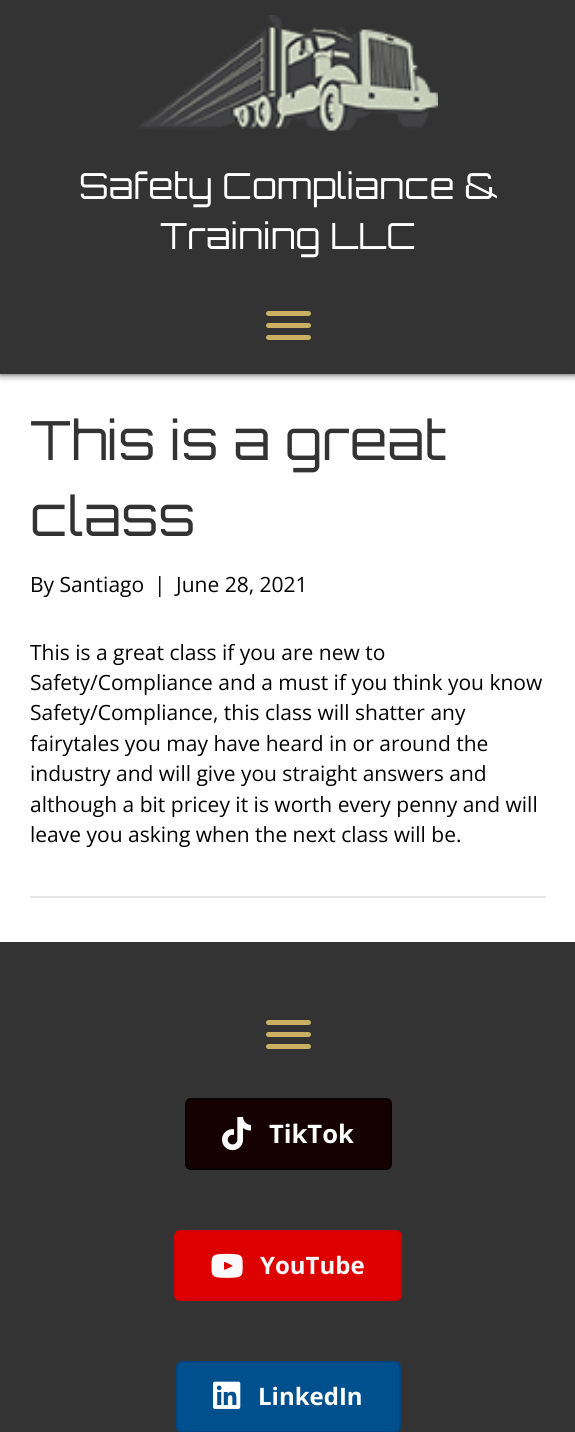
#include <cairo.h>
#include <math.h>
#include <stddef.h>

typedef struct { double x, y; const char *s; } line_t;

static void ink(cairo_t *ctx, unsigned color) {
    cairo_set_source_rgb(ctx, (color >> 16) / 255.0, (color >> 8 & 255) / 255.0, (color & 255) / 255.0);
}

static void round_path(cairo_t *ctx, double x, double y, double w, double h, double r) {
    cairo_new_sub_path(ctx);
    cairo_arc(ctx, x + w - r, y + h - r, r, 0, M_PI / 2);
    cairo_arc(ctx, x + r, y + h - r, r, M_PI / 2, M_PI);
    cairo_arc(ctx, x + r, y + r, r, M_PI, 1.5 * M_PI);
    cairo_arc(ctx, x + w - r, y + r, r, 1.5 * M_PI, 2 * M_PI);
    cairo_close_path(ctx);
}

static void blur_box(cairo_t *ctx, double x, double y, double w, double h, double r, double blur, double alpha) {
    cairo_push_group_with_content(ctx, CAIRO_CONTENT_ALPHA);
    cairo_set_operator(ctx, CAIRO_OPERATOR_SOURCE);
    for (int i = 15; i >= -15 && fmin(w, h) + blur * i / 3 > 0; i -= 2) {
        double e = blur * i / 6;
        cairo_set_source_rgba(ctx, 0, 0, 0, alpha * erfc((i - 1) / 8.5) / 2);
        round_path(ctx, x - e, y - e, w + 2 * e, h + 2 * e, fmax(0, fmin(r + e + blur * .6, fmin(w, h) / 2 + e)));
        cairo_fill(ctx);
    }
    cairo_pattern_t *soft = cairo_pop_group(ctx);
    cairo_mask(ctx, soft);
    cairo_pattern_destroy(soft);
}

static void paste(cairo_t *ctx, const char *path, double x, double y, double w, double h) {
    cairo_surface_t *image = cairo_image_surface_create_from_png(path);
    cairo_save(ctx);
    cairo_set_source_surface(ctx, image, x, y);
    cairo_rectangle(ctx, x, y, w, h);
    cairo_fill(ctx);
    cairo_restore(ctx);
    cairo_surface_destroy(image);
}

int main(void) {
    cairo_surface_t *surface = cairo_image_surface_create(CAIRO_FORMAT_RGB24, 575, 1432);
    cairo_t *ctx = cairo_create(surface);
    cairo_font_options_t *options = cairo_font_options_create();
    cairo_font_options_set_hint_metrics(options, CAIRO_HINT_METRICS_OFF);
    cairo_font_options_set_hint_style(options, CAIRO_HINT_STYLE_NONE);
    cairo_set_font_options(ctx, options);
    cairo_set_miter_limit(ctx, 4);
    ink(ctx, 0xFFFFFF);
    cairo_paint(ctx);
    ink(ctx, 0x333333);
    blur_box(ctx, 0, 0, 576, 374, 0, 4, 1);
    ink(ctx, 0x333333);
    cairo_rectangle(ctx, 0, 0, 575, 374);
    cairo_fill(ctx);
    paste(ctx, "media/1.png", 138, 15, 300, 116);
    cairo_select_font_face(ctx, "Orbitron", CAIRO_FONT_SLANT_NORMAL, CAIRO_FONT_WEIGHT_NORMAL);
    cairo_set_font_size(ctx, 36);
    ink(ctx, 0xFFFFFF);
    cairo_move_to(ctx, 79, 199);
    cairo_show_text(ctx, "Safety Compliance &");
    cairo_move_to(ctx, 160, 249);
    cairo_show_text(ctx, "Training LLC");
    ink(ctx, 0xCAB061);
    round_path(ctx, 266, 323, 45, 5, 2.5);
    cairo_fill(ctx);
    round_path(ctx, 266, 311, 45, 5, 2.5);
    cairo_fill(ctx);
    round_path(ctx, 266, 335, 45, 5, 2.5);
    cairo_fill(ctx);
    cairo_set_font_size(ctx, 54);
    ink(ctx, 0x333333);
    cairo_move_to(ctx, 30, 460);
    cairo_show_text(ctx, "This is a great");
    cairo_move_to(ctx, 30, 536);
    cairo_show_text(ctx, "class");
    cairo_select_font_face(ctx, "Open Sans", CAIRO_FONT_SLANT_NORMAL, CAIRO_FONT_WEIGHT_NORMAL);
    cairo_set_font_size(ctx, 21);
    ink(ctx, 0x030303);
    {
        static const line_t items[] = {
            {30, 592, "By Santiago"},
            {154, 592, "|"},
            {176, 592, "June 28, 2021"},
            {30, 660, "This is a great class if you are new to"},
            {30, 690, "Safety/Compliance and a must if you think you know"},
            {30, 720, "Safety/Compliance, this class will shatter any"},
            {30, 751, "fairytales you may have heard in or around the"},
            {30, 781, "industry and will give you straight answers and"},
            {30, 812, "although a bit pricey it is worth every penny and will"},
            {30, 842, "leave you asking when the next class will be."},
        };
        for (size_t i = 0; i < sizeof items / sizeof *items; i++) {
            cairo_move_to(ctx, items[i].x, items[i].y);
            cairo_show_text(ctx, items[i].s);
        }
    }
    ink(ctx, 0xE6E6E6);
    cairo_rectangle(ctx, 30, 896, 516, 2);
    cairo_fill(ctx);
    ink(ctx, 0x333333);
    cairo_rectangle(ctx, 0, 942, 575, 490);
    cairo_fill(ctx);
    ink(ctx, 0xCAB061);
    round_path(ctx, 266, 1032, 45, 5, 2.5);
    cairo_fill(ctx);
    round_path(ctx, 266, 1020, 45, 5, 2.5);
    cairo_fill(ctx);
    round_path(ctx, 266, 1044, 45, 5, 2.5);
    cairo_fill(ctx);
    ink(ctx, 0x140100);
    round_path(ctx, 186, 1099, 205, 70, 5);
    cairo_fill_preserve(ctx);
    ink(ctx, 0x080000);
    cairo_stroke(ctx);
    paste(ctx, "media/2.png", 222, 1117, 29, 34);
    cairo_select_font_face(ctx, "Open Sans", CAIRO_FONT_SLANT_NORMAL, CAIRO_FONT_WEIGHT_BOLD);
    cairo_set_font_size(ctx, 25.5);
    ink(ctx, 0xFFFFFF);
    cairo_move_to(ctx, 269, 1143);
    cairo_show_text(ctx, "TikTok");
    ink(ctx, 0xDD0000);
    round_path(ctx, 175, 1231, 226, 69, 5);
    cairo_fill_preserve(ctx);
    ink(ctx, 0xD10000);
    cairo_stroke(ctx);
    paste(ctx, "media/3.png", 211, 1253, 32, 25);
    cairo_set_font_size(ctx, 24);
    ink(ctx, 0xF9F9F9);
    cairo_move_to(ctx, 260, 1274);
    cairo_show_text(ctx, "YouTube");
    ink(ctx, 0x00508E);
    round_path(ctx, 177, 1362, 223, 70, 5);
    cairo_fill_preserve(ctx);
    ink(ctx, 0x004482);
    cairo_stroke(ctx);
    paste(ctx, "media/4.png", 213, 1381, 28, 28);
    ink(ctx, 0xFFFFFF);
    cairo_move_to(ctx, 258, 1405);
    cairo_show_text(ctx, "LinkedIn");
    cairo_surface_write_to_png(surface, "image.png");
    cairo_font_options_destroy(options);
    cairo_destroy(ctx);
    cairo_surface_destroy(surface);
    return 0;
}
